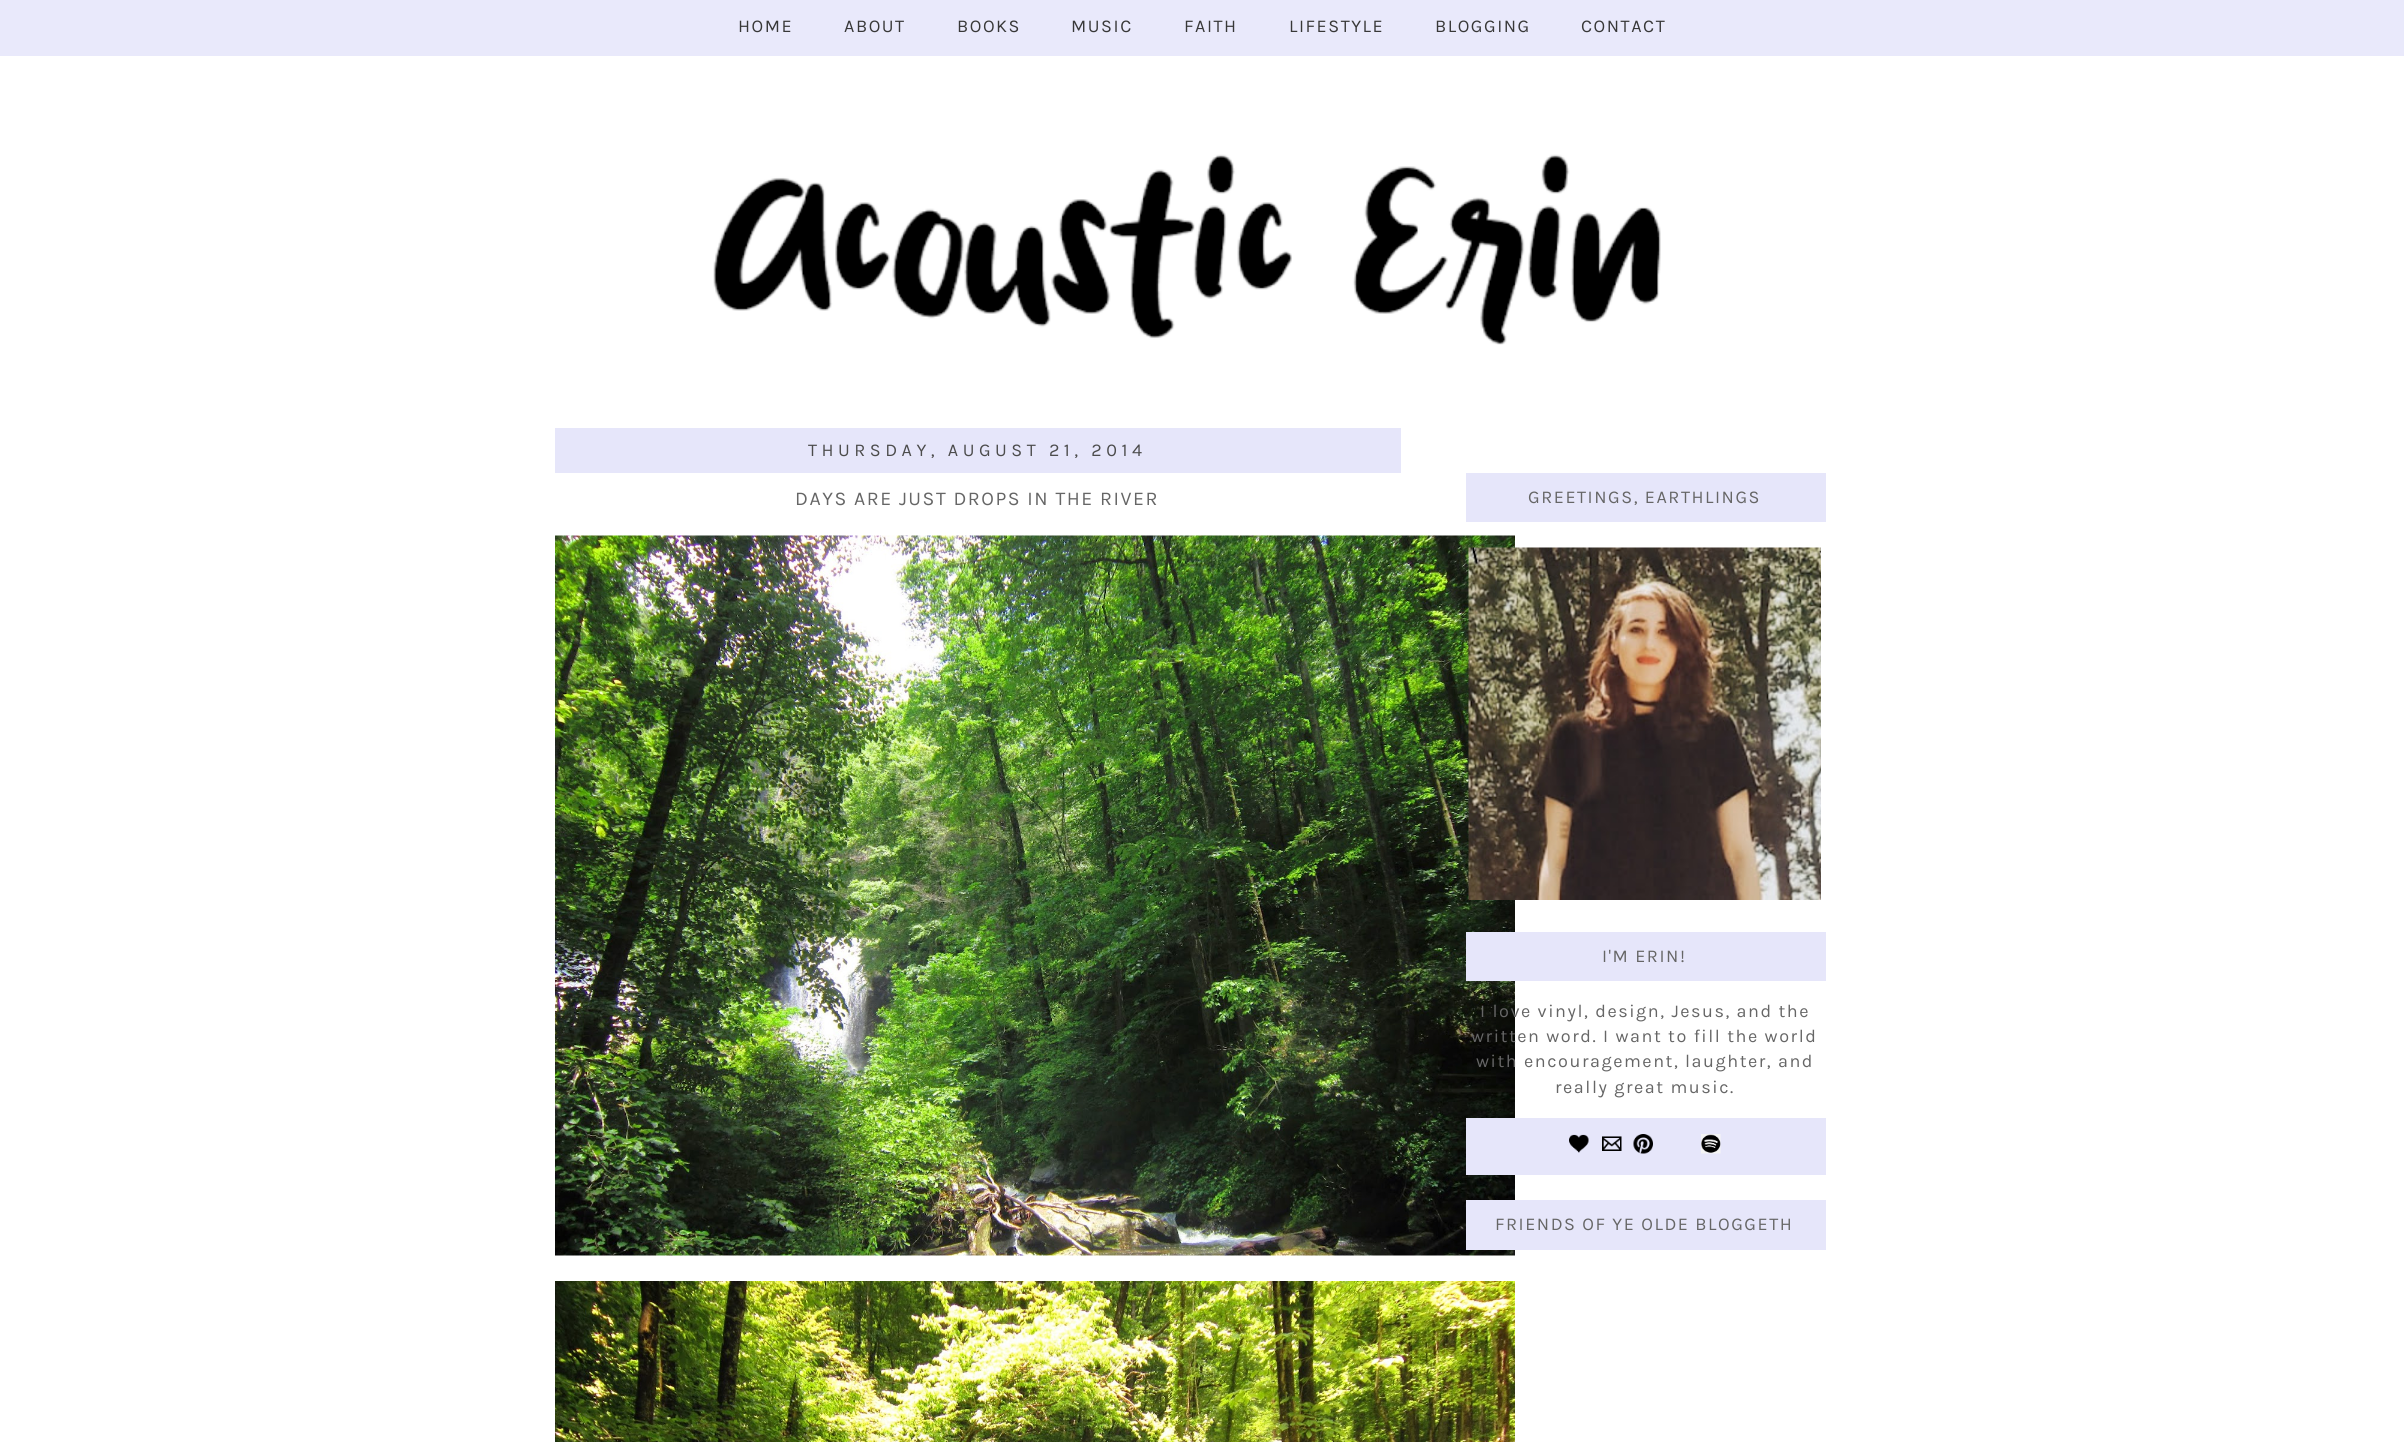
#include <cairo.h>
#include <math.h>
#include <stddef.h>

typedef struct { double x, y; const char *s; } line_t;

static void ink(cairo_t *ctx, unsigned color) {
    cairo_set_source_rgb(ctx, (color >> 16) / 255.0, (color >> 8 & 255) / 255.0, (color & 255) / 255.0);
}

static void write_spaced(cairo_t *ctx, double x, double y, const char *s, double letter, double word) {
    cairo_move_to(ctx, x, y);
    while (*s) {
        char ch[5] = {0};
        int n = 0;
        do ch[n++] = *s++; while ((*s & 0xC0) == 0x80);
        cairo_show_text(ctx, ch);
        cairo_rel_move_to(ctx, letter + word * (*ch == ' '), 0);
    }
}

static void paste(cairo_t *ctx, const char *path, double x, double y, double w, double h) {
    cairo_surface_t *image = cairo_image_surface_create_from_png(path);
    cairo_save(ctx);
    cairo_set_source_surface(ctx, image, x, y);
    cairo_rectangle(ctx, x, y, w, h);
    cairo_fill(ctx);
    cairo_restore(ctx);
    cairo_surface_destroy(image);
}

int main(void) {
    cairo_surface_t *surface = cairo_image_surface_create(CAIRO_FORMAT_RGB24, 2404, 1442);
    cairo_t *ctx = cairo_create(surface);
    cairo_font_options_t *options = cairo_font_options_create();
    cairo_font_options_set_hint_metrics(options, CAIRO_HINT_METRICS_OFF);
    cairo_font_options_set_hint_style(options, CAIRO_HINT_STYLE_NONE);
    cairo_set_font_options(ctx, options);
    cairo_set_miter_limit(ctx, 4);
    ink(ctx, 0xFFFFFF);
    cairo_paint(ctx);
    ink(ctx, 0xE9E9FB);
    cairo_rectangle(ctx, 0, 0, 2404, 56);
    cairo_fill(ctx);
    cairo_select_font_face(ctx, "Karla", CAIRO_FONT_SLANT_NORMAL, CAIRO_FONT_WEIGHT_NORMAL);
    cairo_set_font_size(ctx, 18);
    ink(ctx, 0x383838);
    {
        static const line_t items[] = {
            {738, 32, "HOME"},
            {844, 32, "ABOUT"},
            {957, 32, "BOOKS"},
            {1071, 32, "MUSIC"},
            {1184, 32, "FAITH"},
            {1289, 32, "LIFESTYLE"},
            {1435, 32, "BLOGGING"},
            {1581, 32, "CONTACT"},
        };
        for (size_t i = 0; i < sizeof items / sizeof *items; i++) {
            write_spaced(ctx, items[i].x, items[i].y, items[i].s, 1.55, 0);
        }
    }
    ink(ctx, 0xE6E6FA);
    cairo_rectangle(ctx, 1466, 473, 360, 49);
    cairo_fill(ctx);
    ink(ctx, 0x666666);
    write_spaced(ctx, 1528, 503, "GREETINGS, EARTHLINGS", 1.55, 0);
    paste(ctx, "media/6.png", 555, 535, 960, 721);
    paste(ctx, "media/1.png", 1468, 547, 353, 353);
    ink(ctx, 0xE6E6FA);
    cairo_rectangle(ctx, 1466, 932, 360, 49);
    cairo_fill(ctx);
    ink(ctx, 0x666666);
    {
        static const line_t items[] = {
            {1602, 962, "I'M ERIN!"},
            {1480, 1017, "I love vinyl, design, Jesus, and the"},
            {1471, 1042, "written word. I want to fill the world"},
            {1476, 1067, "with encouragement, laughter, and"},
            {1555, 1093, "really great music."},
        };
        for (size_t i = 0; i < sizeof items / sizeof *items; i++) {
            write_spaced(ctx, items[i].x, items[i].y, items[i].s, 1.55, 0);
        }
    }
    ink(ctx, 0xE6E6FA);
    cairo_rectangle(ctx, 1466, 1118, 360, 57);
    cairo_fill(ctx);
    paste(ctx, "media/2.png", 1569, 1134, 20, 19);
    paste(ctx, "media/3.png", 1602, 1136, 20, 15);
    paste(ctx, "media/4.png", 1633, 1134, 20, 20);
    paste(ctx, "media/5.png", 1701, 1134, 20, 20);
    cairo_rectangle(ctx, 1466, 1200, 360, 50);
    cairo_fill(ctx);
    ink(ctx, 0x666666);
    write_spaced(ctx, 1495, 1230, "FRIENDS OF YE OLDE BLOGGETH", 1.55, 0);
    ink(ctx, 0xE6E6FA);
    cairo_rectangle(ctx, 555, 428, 846, 45);
    cairo_fill(ctx);
    ink(ctx, 0x4C4C4C);
    write_spaced(ctx, 808, 456, "THURSDAY, AUGUST 21, 2014", 4.5, 0);
    cairo_set_font_size(ctx, 19.5);
    ink(ctx, 0x666666);
    write_spaced(ctx, 795, 505, "DAYS ARE JUST DROPS IN THE RIVER", 1.55, 0);
    paste(ctx, "media/7.png", 555, 1281, 960, 161);
    paste(ctx, "media/8.png", 713, 154, 948, 191);
    cairo_surface_write_to_png(surface, "image.png");
    cairo_font_options_destroy(options);
    cairo_destroy(ctx);
    cairo_surface_destroy(surface);
    return 0;
}
